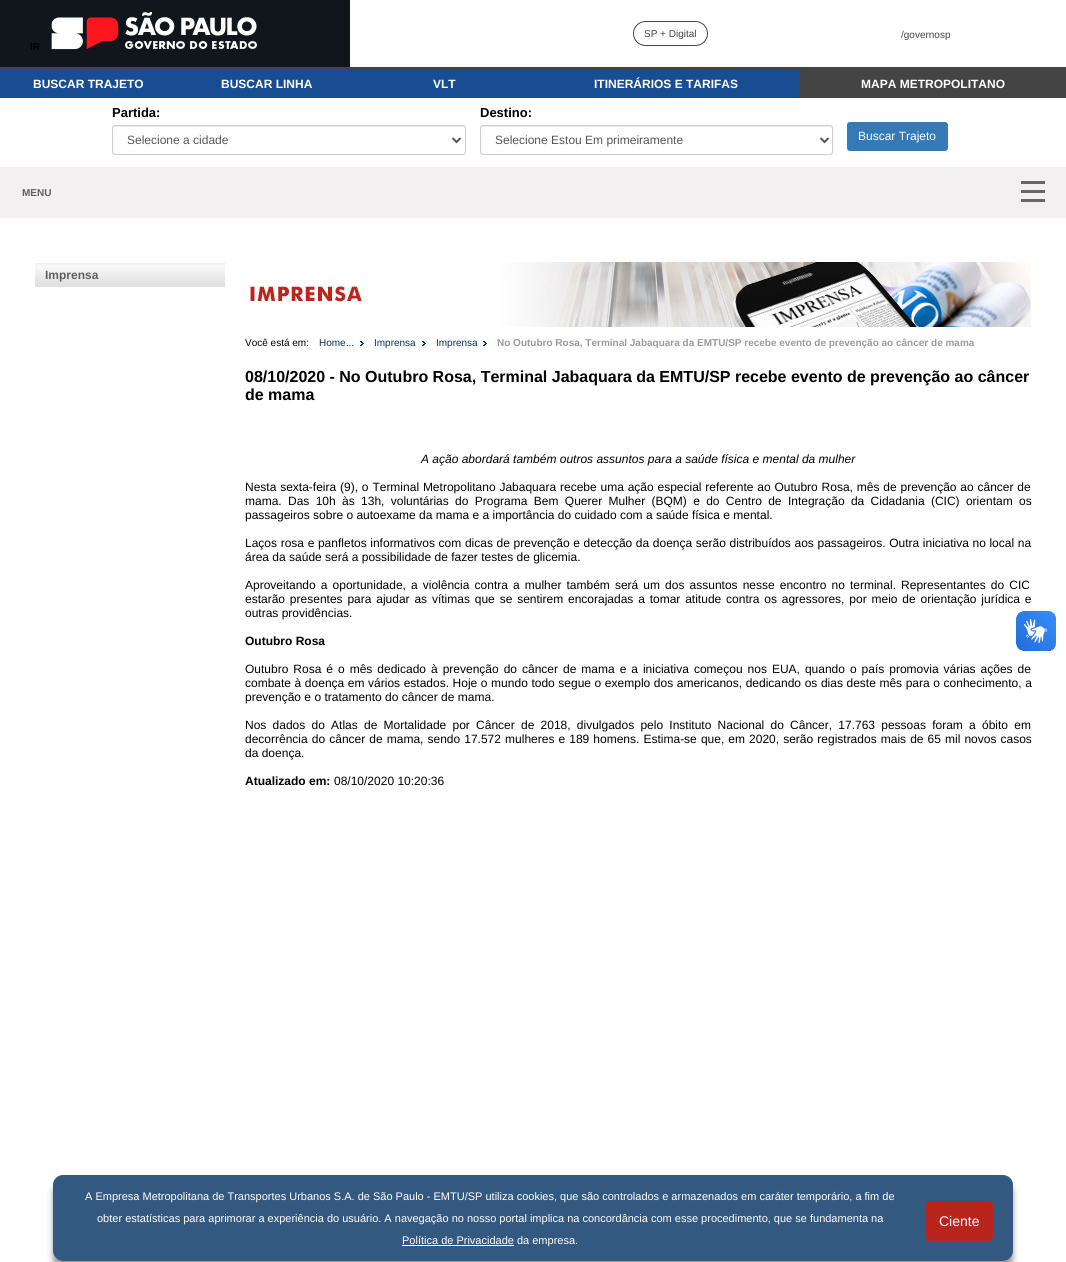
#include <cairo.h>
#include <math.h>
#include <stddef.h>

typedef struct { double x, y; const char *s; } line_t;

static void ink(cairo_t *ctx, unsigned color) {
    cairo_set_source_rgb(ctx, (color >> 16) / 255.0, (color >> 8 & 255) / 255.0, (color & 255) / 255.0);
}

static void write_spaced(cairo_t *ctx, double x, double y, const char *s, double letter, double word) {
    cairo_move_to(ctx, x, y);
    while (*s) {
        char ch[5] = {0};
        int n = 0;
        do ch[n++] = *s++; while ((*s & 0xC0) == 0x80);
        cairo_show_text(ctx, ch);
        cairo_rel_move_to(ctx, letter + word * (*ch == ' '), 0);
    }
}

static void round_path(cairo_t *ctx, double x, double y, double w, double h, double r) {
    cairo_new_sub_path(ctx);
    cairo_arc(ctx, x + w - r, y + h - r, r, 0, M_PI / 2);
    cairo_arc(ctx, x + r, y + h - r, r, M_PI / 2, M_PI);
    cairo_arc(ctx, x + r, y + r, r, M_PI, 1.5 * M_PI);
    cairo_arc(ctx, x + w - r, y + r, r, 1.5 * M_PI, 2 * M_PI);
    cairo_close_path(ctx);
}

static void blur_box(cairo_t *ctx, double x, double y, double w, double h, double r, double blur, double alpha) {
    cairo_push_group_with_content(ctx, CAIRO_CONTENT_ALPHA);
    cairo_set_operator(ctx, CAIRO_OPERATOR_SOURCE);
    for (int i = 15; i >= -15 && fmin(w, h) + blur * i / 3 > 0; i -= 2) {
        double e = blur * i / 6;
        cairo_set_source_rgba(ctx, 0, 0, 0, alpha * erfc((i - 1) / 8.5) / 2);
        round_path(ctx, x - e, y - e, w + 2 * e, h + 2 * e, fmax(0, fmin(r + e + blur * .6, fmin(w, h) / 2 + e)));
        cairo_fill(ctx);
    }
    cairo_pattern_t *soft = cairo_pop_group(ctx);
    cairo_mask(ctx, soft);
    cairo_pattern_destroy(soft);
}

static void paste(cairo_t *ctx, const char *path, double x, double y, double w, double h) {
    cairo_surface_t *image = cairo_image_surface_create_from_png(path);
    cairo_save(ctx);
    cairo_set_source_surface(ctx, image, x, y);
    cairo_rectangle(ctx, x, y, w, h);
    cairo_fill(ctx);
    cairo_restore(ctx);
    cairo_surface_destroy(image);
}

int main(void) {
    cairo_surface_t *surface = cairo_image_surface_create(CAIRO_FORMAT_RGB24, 1066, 1262);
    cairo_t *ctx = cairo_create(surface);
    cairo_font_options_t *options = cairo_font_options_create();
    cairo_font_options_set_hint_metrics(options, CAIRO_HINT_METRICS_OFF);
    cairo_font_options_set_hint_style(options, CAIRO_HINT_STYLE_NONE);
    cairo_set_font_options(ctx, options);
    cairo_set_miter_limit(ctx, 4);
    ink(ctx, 0xFFFFFF);
    cairo_paint(ctx);
    ink(ctx, 0x444444);
    cairo_rectangle(ctx, 0, 67, 1066, 3);
    cairo_fill(ctx);
    round_path(ctx, 633.5, 21.5, 74, 24, 12);
    cairo_set_line_width(ctx, 1);
    cairo_stroke(ctx);
    cairo_select_font_face(ctx, "Liberation Sans", CAIRO_FONT_SLANT_NORMAL, CAIRO_FONT_WEIGHT_NORMAL);
    cairo_set_font_size(ctx, 10);
    cairo_move_to(ctx, 644, 37);
    cairo_show_text(ctx, "SP + Digital");
    cairo_move_to(ctx, 901, 38);
    cairo_show_text(ctx, "/governosp");
    ink(ctx, 0x11161D);
    cairo_rectangle(ctx, 0, 0, 350, 67);
    cairo_fill(ctx);
    cairo_select_font_face(ctx, "Liberation Sans", CAIRO_FONT_SLANT_NORMAL, CAIRO_FONT_WEIGHT_BOLD);
    ink(ctx, 0x000000);
    cairo_move_to(ctx, 30, 50);
    cairo_show_text(ctx, "IR");
    paste(ctx, "media/1.png", 51, 12, 206, 38);
    ink(ctx, 0x184D94);
    cairo_rectangle(ctx, 0, 70, 799, 28);
    cairo_fill(ctx);
    cairo_set_font_size(ctx, 12);
    ink(ctx, 0xFFFFFF);
    {
        static const line_t items[] = {
            {33, 88, "BUSCAR TRAJETO"},
            {221, 88, "BUSCAR LINHA"},
            {433, 88, "VLT"},
            {594, 88, "ITINERÁRIOS E TARIFAS"},
        };
        for (size_t i = 0; i < sizeof items / sizeof *items; i++) {
            cairo_move_to(ctx, items[i].x, items[i].y);
            cairo_show_text(ctx, items[i].s);
        }
    }
    ink(ctx, 0x444444);
    cairo_rectangle(ctx, 799, 70, 267, 28);
    cairo_fill(ctx);
    ink(ctx, 0xFFFFFF);
    cairo_move_to(ctx, 861, 88);
    cairo_show_text(ctx, "MAPA METROPOLITANO");
    cairo_set_font_size(ctx, 13);
    ink(ctx, 0x000000);
    cairo_move_to(ctx, 112, 117);
    cairo_show_text(ctx, "Partida:");
    ink(ctx, 0xEBEBEB);
    cairo_new_path(ctx);
    cairo_move_to(ctx, 115, 127);
    cairo_line_to(ctx, 463, 127);
    cairo_curve_to(ctx, 464, 127, 465, 128, 465, 129);
    cairo_curve_to(ctx, 465, 128, 465, 126, 463, 126);
    cairo_line_to(ctx, 115, 126);
    cairo_curve_to(ctx, 113, 126, 113, 128, 113, 129);
    cairo_curve_to(ctx, 113, 128, 114, 127, 115, 127);
    cairo_close_path(ctx);
    cairo_fill(ctx);
    round_path(ctx, 112.5, 125.5, 353, 29, 2.5);
    ink(ctx, 0xCCCCCC);
    cairo_stroke(ctx);
    cairo_new_path(ctx);
    cairo_move_to(ctx, 452.5, 138);
    cairo_line_to(ctx, 456.5, 142);
    cairo_line_to(ctx, 460.5, 138);
    ink(ctx, 0x555555);
    cairo_set_line_width(ctx, 2);
    cairo_stroke(ctx);
    cairo_select_font_face(ctx, "Liberation Sans", CAIRO_FONT_SLANT_NORMAL, CAIRO_FONT_WEIGHT_NORMAL);
    cairo_set_font_size(ctx, 12);
    cairo_move_to(ctx, 127, 144);
    cairo_show_text(ctx, "Selecione a cidade");
    cairo_select_font_face(ctx, "Liberation Sans", CAIRO_FONT_SLANT_NORMAL, CAIRO_FONT_WEIGHT_BOLD);
    cairo_set_font_size(ctx, 13);
    ink(ctx, 0x000000);
    cairo_move_to(ctx, 480, 117);
    cairo_show_text(ctx, "Destino:");
    ink(ctx, 0xEBEBEB);
    cairo_new_path(ctx);
    cairo_move_to(ctx, 483, 127);
    cairo_line_to(ctx, 830, 127);
    cairo_curve_to(ctx, 831, 127, 832, 128, 832, 129);
    cairo_curve_to(ctx, 832, 128, 832, 126, 830, 126);
    cairo_line_to(ctx, 483, 126);
    cairo_curve_to(ctx, 481, 126, 481, 128, 481, 129);
    cairo_curve_to(ctx, 481, 128, 482, 127, 483, 127);
    cairo_close_path(ctx);
    cairo_fill(ctx);
    round_path(ctx, 480.5, 125.5, 352, 29, 2.5);
    ink(ctx, 0xCCCCCC);
    cairo_set_line_width(ctx, 1);
    cairo_stroke(ctx);
    cairo_new_path(ctx);
    cairo_move_to(ctx, 820.5, 138);
    cairo_line_to(ctx, 824.5, 142);
    cairo_line_to(ctx, 828.5, 138);
    ink(ctx, 0x555555);
    cairo_set_line_width(ctx, 2);
    cairo_stroke(ctx);
    cairo_select_font_face(ctx, "Liberation Sans", CAIRO_FONT_SLANT_NORMAL, CAIRO_FONT_WEIGHT_NORMAL);
    cairo_set_font_size(ctx, 12);
    cairo_move_to(ctx, 495, 144);
    cairo_show_text(ctx, "Selecione Estou Em primeiramente");
    ink(ctx, 0x337AB7);
    round_path(ctx, 847, 122, 101, 29, 3);
    cairo_fill(ctx);
    ink(ctx, 0xFFFFFF);
    cairo_move_to(ctx, 858, 140);
    cairo_show_text(ctx, "Buscar Trajeto");
    ink(ctx, 0xF2F0F1);
    cairo_rectangle(ctx, 0, 167, 1066, 51);
    cairo_fill(ctx);
    cairo_select_font_face(ctx, "Liberation Sans", CAIRO_FONT_SLANT_NORMAL, CAIRO_FONT_WEIGHT_BOLD);
    cairo_set_font_size(ctx, 10);
    ink(ctx, 0x5E5F60);
    cairo_move_to(ctx, 22, 196);
    cairo_show_text(ctx, "MENU");
    paste(ctx, "media/2.png", 1021, 181, 24, 21);
    paste(ctx, "media/3.png", 35, 263, 190, 24);
    cairo_set_font_size(ctx, 12);
    cairo_move_to(ctx, 45, 279);
    cairo_show_text(ctx, "Imprensa");
    paste(ctx, "media/4.png", 245, 262, 786, 65);
    cairo_select_font_face(ctx, "Liberation Sans", CAIRO_FONT_SLANT_NORMAL, CAIRO_FONT_WEIGHT_NORMAL);
    cairo_set_font_size(ctx, 10);
    ink(ctx, 0x000000);
    cairo_move_to(ctx, 245, 346);
    cairo_show_text(ctx, "Você está em:");
    paste(ctx, "media/5.png", 360, 341, 4, 5);
    ink(ctx, 0x063355);
    cairo_move_to(ctx, 319, 346);
    cairo_show_text(ctx, "Home...");
    paste(ctx, "media/5.png", 422, 341, 4, 5);
    cairo_move_to(ctx, 374, 346);
    cairo_show_text(ctx, "Imprensa");
    paste(ctx, "media/5.png", 483, 341, 4, 5);
    cairo_move_to(ctx, 436, 346);
    cairo_show_text(ctx, "Imprensa");
    cairo_select_font_face(ctx, "Liberation Sans", CAIRO_FONT_SLANT_NORMAL, CAIRO_FONT_WEIGHT_BOLD);
    ink(ctx, 0x9B9B9B);
    cairo_move_to(ctx, 497, 346);
    cairo_show_text(ctx, "No Outubro Rosa, Terminal Jabaquara da EMTU/SP recebe evento de prevenção ao câncer de mama");
    cairo_set_font_size(ctx, 16);
    ink(ctx, 0x000000);
    cairo_move_to(ctx, 245, 382);
    cairo_show_text(ctx, "08/10/2020 - No Outubro Rosa, Terminal Jabaquara da EMTU/SP recebe evento de prevenção ao câncer");
    cairo_move_to(ctx, 245, 400);
    cairo_show_text(ctx, "de mama");
    cairo_select_font_face(ctx, "Liberation Sans", CAIRO_FONT_SLANT_ITALIC, CAIRO_FONT_WEIGHT_NORMAL);
    cairo_set_font_size(ctx, 12);
    cairo_move_to(ctx, 421, 463);
    cairo_show_text(ctx, "A ação abordará também outros assuntos para a saúde física e mental da mulher");
    cairo_select_font_face(ctx, "Liberation Sans", CAIRO_FONT_SLANT_NORMAL, CAIRO_FONT_WEIGHT_NORMAL);
    write_spaced(ctx, 245, 491, "Nesta sexta-feira (9), o Terminal Metropolitano Jabaquara recebe uma ação especial referente ao Outubro Rosa, mês de prevenção ao câncer de", 0, 0.5);
    write_spaced(ctx, 245, 505, "mama. Das 10h às 13h, voluntárias do Programa Bem Querer Mulher (BQM) e do Centro de Integração da Cidadania (CIC) orientam os", 0, 3);
    cairo_move_to(ctx, 245, 519);
    cairo_show_text(ctx, "passageiros sobre o autoexame da mama e a importância do cuidado com a saúde física e mental.");
    write_spaced(ctx, 245, 547, "Laços rosa e panfletos informativos com dicas de prevenção e detecção da doença serão distribuídos aos passageiros. Outra iniciativa no local na", 0, 0.3);
    cairo_move_to(ctx, 245, 561);
    cairo_show_text(ctx, "área da saúde será a possibilidade de fazer testes de glicemia.");
    write_spaced(ctx, 245, 589, "Aproveitando a oportunidade, a violência contra a mulher também será um dos assuntos nesse encontro no terminal. Representantes do CIC", 0, 1.75);
    write_spaced(ctx, 245, 603, "estarão presentes para ajudar as vítimas que se sentirem encorajadas a tomar atitude contra os agressores, por meio de orientação jurídica e", 0, 1.5);
    cairo_move_to(ctx, 245, 617);
    cairo_show_text(ctx, "outras providências.");
    cairo_select_font_face(ctx, "Liberation Sans", CAIRO_FONT_SLANT_NORMAL, CAIRO_FONT_WEIGHT_BOLD);
    cairo_move_to(ctx, 245, 645);
    cairo_show_text(ctx, "Outubro Rosa");
    cairo_select_font_face(ctx, "Liberation Sans", CAIRO_FONT_SLANT_NORMAL, CAIRO_FONT_WEIGHT_NORMAL);
    write_spaced(ctx, 245, 673, "Outubro Rosa é o mês dedicado à prevenção do câncer de mama e a iniciativa começou nos EUA, quando o país promovia várias ações de", 0, 1.65);
    write_spaced(ctx, 245, 687, "combate à doença em vários estados. Hoje o mundo todo segue o exemplo dos americanos, dedicando os dias deste mês para o conhecimento, a", 0, 0.25);
    cairo_move_to(ctx, 245, 701);
    cairo_show_text(ctx, "prevenção e o tratamento do câncer de mama.");
    write_spaced(ctx, 245, 729, "Nos dados do Atlas de Mortalidade por Câncer de 2018, divulgados pelo Instituto Nacional do Câncer, 17.763 pessoas foram a óbito em", 0, 2.9);
    write_spaced(ctx, 245, 743, "decorrência do câncer de mama, sendo 17.572 mulheres e 189 homens. Estima-se que, em 2020, serão registrados mais de 65 mil novos casos", 0, 0.75);
    cairo_move_to(ctx, 245, 757);
    cairo_show_text(ctx, "da doença.");
    cairo_select_font_face(ctx, "Liberation Sans", CAIRO_FONT_SLANT_NORMAL, CAIRO_FONT_WEIGHT_BOLD);
    cairo_move_to(ctx, 245, 785);
    cairo_show_text(ctx, "Atualizado em:");
    cairo_select_font_face(ctx, "Liberation Sans", CAIRO_FONT_SLANT_NORMAL, CAIRO_FONT_WEIGHT_NORMAL);
    cairo_move_to(ctx, 334, 785);
    cairo_show_text(ctx, "08/10/2020 10:20:36");
    paste(ctx, "media/6.png", 1016, 611, 40, 40);
    paste(ctx, "media/7.png", 1016, 611, 40, 40);
    cairo_save(ctx);
    cairo_set_fill_rule(ctx, CAIRO_FILL_RULE_EVEN_ODD);
    cairo_new_path(ctx);
    cairo_move_to(ctx, 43, 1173);
    cairo_line_to(ctx, 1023, 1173);
    cairo_line_to(ctx, 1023, 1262);
    cairo_line_to(ctx, 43, 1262);
    cairo_close_path(ctx);
    cairo_move_to(ctx, 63, 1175);
    cairo_line_to(ctx, 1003, 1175);
    cairo_curve_to(ctx, 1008.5, 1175, 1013, 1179.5, 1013, 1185);
    cairo_line_to(ctx, 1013, 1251);
    cairo_curve_to(ctx, 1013, 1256.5, 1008.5, 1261, 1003, 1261);
    cairo_line_to(ctx, 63, 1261);
    cairo_curve_to(ctx, 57.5, 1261, 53, 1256.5, 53, 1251);
    cairo_line_to(ctx, 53, 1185);
    cairo_curve_to(ctx, 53, 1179.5, 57.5, 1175, 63, 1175);
    cairo_close_path(ctx);
    cairo_clip(ctx);
    ink(ctx, 0x000000);
    blur_box(ctx, 53, 1183, 960, 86, 10, 3, 0.41);
    cairo_restore(ctx);
    cairo_set_source_rgba(ctx, 0.008, 0.188, 0.376, 0.8);
    round_path(ctx, 53, 1175, 960, 86, 10);
    cairo_fill(ctx);
    cairo_set_font_size(ctx, 11);
    ink(ctx, 0xFFFFFF);
    cairo_move_to(ctx, 85, 1200);
    cairo_show_text(ctx, "A Empresa Metropolitana de Transportes Urbanos S.A. de São Paulo - EMTU/SP utiliza cookies, que são controlados e armazenados em caráter temporário, a fim de");
    cairo_move_to(ctx, 97, 1222);
    cairo_show_text(ctx, "obter estatísticas para aprimorar a experiência do usuário. A navegação no nosso portal implica na concordância com esse procedimento, que se fundamenta na");
    cairo_rectangle(ctx, 402, 1245, 112, 1);
    cairo_fill(ctx);
    cairo_move_to(ctx, 402, 1244);
    cairo_show_text(ctx, "Política de Privacidade da empresa.");
    ink(ctx, 0xB9241D);
    round_path(ctx, 926, 1201, 67, 40, 4);
    cairo_fill(ctx);
    cairo_set_font_size(ctx, 14);
    ink(ctx, 0xFFFFFF);
    cairo_move_to(ctx, 939, 1226);
    cairo_show_text(ctx, "Ciente");
    cairo_surface_write_to_png(surface, "image.png");
    cairo_font_options_destroy(options);
    cairo_destroy(ctx);
    cairo_surface_destroy(surface);
    return 0;
}
